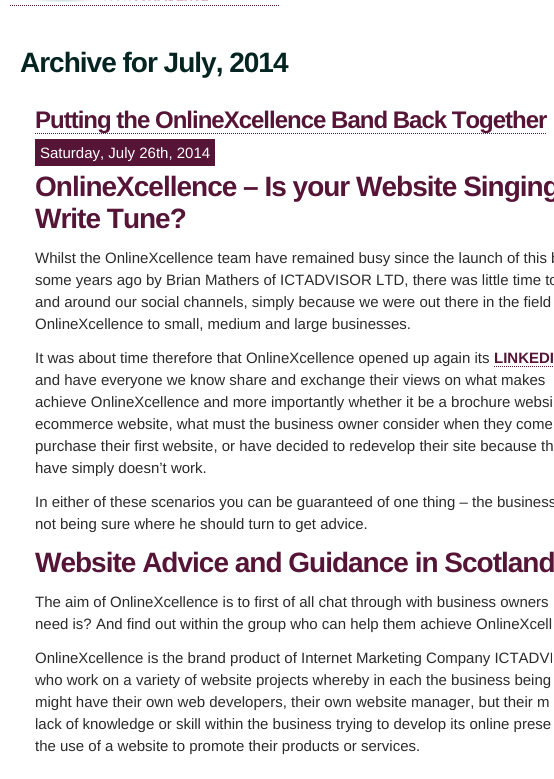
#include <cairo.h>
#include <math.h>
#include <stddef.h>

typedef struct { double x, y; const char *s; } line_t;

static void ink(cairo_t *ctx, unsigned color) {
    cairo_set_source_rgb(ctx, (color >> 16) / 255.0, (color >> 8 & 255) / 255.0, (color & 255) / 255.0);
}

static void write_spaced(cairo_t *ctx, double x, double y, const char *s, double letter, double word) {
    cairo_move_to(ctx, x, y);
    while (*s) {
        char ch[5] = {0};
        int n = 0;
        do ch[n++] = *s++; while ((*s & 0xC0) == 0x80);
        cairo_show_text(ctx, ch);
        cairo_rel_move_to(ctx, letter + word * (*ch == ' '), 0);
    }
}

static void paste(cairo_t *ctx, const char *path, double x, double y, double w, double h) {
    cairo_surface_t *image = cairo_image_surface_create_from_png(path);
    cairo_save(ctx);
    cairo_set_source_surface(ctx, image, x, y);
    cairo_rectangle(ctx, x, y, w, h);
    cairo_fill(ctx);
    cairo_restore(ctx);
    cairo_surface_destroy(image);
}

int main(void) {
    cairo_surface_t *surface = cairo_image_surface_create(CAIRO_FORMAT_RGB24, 554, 779);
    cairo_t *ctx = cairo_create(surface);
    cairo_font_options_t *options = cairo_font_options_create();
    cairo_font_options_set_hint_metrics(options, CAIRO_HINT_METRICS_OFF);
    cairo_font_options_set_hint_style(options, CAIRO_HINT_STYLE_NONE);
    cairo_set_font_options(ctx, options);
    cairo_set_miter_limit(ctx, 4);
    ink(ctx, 0xFFFFFF);
    cairo_paint(ctx);
    paste(ctx, "media/1.png", 31, 0, 178, 2);
    cairo_new_path(ctx);
    cairo_move_to(ctx, 10, 5.5);
    cairo_line_to(ctx, 279, 5.5);
    ink(ctx, 0x561537);
    cairo_set_line_width(ctx, 1);
    cairo_set_dash(ctx, (double[]){1, 1}, 2, 0);
    cairo_stroke(ctx);
    cairo_select_font_face(ctx, "Liberation Sans", CAIRO_FONT_SLANT_NORMAL, CAIRO_FONT_WEIGHT_BOLD);
    cairo_set_font_size(ctx, 28);
    ink(ctx, 0x032421);
    write_spaced(ctx, 20, 72, "Archive for July, 2014", -1, 0);
    cairo_new_path(ctx);
    cairo_move_to(ctx, 35, 133.5);
    cairo_line_to(ctx, 546, 133.5);
    ink(ctx, 0x561537);
    cairo_stroke(ctx);
    cairo_set_font_size(ctx, 24);
    write_spaced(ctx, 35, 128, "Putting the OnlineXcellence Band Back Together", -1, 0);
    cairo_rectangle(ctx, 35, 139, 180, 27);
    cairo_fill(ctx);
    cairo_select_font_face(ctx, "Liberation Sans", CAIRO_FONT_SLANT_NORMAL, CAIRO_FONT_WEIGHT_NORMAL);
    cairo_set_font_size(ctx, 15);
    ink(ctx, 0xFFFFFF);
    cairo_move_to(ctx, 40, 158);
    cairo_show_text(ctx, "Saturday, July 26th, 2014");
    cairo_select_font_face(ctx, "Liberation Sans", CAIRO_FONT_SLANT_NORMAL, CAIRO_FONT_WEIGHT_BOLD);
    cairo_set_font_size(ctx, 28);
    ink(ctx, 0x561537);
    write_spaced(ctx, 35, 196, "OnlineXcellence – Is your Website Singing", -1, 0);
    write_spaced(ctx, 35, 228, "Write Tune?", -1, 0);
    cairo_select_font_face(ctx, "Liberation Sans", CAIRO_FONT_SLANT_NORMAL, CAIRO_FONT_WEIGHT_NORMAL);
    cairo_set_font_size(ctx, 15);
    ink(ctx, 0x2A2A2A);
    {
        static const line_t items[] = {
            {35, 263, "Whilst the OnlineXcellence team have remained busy since the launch of this b"},
            {35, 285, "some years ago by Brian Mathers of ICTADVISOR LTD, there was little time to"},
            {35, 307, "and around our social channels, simply because we were out there in the field"},
            {35, 329, "OnlineXcellence to small, medium and large businesses."},
            {35, 363, "It was about time therefore that OnlineXcellence opened up again its"},
        };
        for (size_t i = 0; i < sizeof items / sizeof *items; i++) {
            cairo_move_to(ctx, items[i].x, items[i].y);
            cairo_show_text(ctx, items[i].s);
        }
    }
    cairo_select_font_face(ctx, "Liberation Sans", CAIRO_FONT_SLANT_NORMAL, CAIRO_FONT_WEIGHT_BOLD);
    ink(ctx, 0x561537);
    cairo_move_to(ctx, 494, 363);
    cairo_show_text(ctx, "LINKEDI");
    cairo_new_path(ctx);
    cairo_move_to(ctx, 494, 366.5);
    cairo_line_to(ctx, 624, 366.5);
    cairo_stroke(ctx);
    cairo_select_font_face(ctx, "Liberation Sans", CAIRO_FONT_SLANT_NORMAL, CAIRO_FONT_WEIGHT_NORMAL);
    ink(ctx, 0x2A2A2A);
    {
        static const line_t items[] = {
            {35, 385, "and have everyone we know share and exchange their views on what makes"},
            {35, 407, "achieve OnlineXcellence and more importantly whether it be a brochure websi"},
            {35, 429, "ecommerce website, what must the business owner consider when they come"},
            {35, 451, "purchase their first website, or have decided to redevelop their site because th"},
            {35, 473, "have simply doesn’t work."},
            {35, 507, "In either of these scenarios you can be guaranteed of one thing – the business"},
            {35, 529, "not being sure where he should turn to get advice."},
        };
        for (size_t i = 0; i < sizeof items / sizeof *items; i++) {
            cairo_move_to(ctx, items[i].x, items[i].y);
            cairo_show_text(ctx, items[i].s);
        }
    }
    cairo_select_font_face(ctx, "Liberation Sans", CAIRO_FONT_SLANT_NORMAL, CAIRO_FONT_WEIGHT_BOLD);
    cairo_set_font_size(ctx, 28);
    ink(ctx, 0x561537);
    write_spaced(ctx, 35, 572, "Website Advice and Guidance in Scotland", -1, 0);
    cairo_select_font_face(ctx, "Liberation Sans", CAIRO_FONT_SLANT_NORMAL, CAIRO_FONT_WEIGHT_NORMAL);
    cairo_set_font_size(ctx, 15);
    ink(ctx, 0x2A2A2A);
    {
        static const line_t items[] = {
            {35, 607, "The aim of OnlineXcellence is to first of all chat through with business owners"},
            {35, 629, "need is? And find out within the group who can help them achieve OnlineXcell"},
            {35, 663, "OnlineXcellence is the brand product of Internet Marketing Company ICTADVI"},
            {35, 685, "who work on a variety of website projects whereby in each the business being"},
            {35, 707, "might have their own web developers, their own website manager, but their m"},
            {35, 729, "lack of knowledge or skill within the business trying to develop its online prese"},
            {35, 751, "the use of a website to promote their products or services."},
        };
        for (size_t i = 0; i < sizeof items / sizeof *items; i++) {
            cairo_move_to(ctx, items[i].x, items[i].y);
            cairo_show_text(ctx, items[i].s);
        }
    }
    cairo_surface_write_to_png(surface, "image.png");
    cairo_font_options_destroy(options);
    cairo_destroy(ctx);
    cairo_surface_destroy(surface);
    return 0;
}
